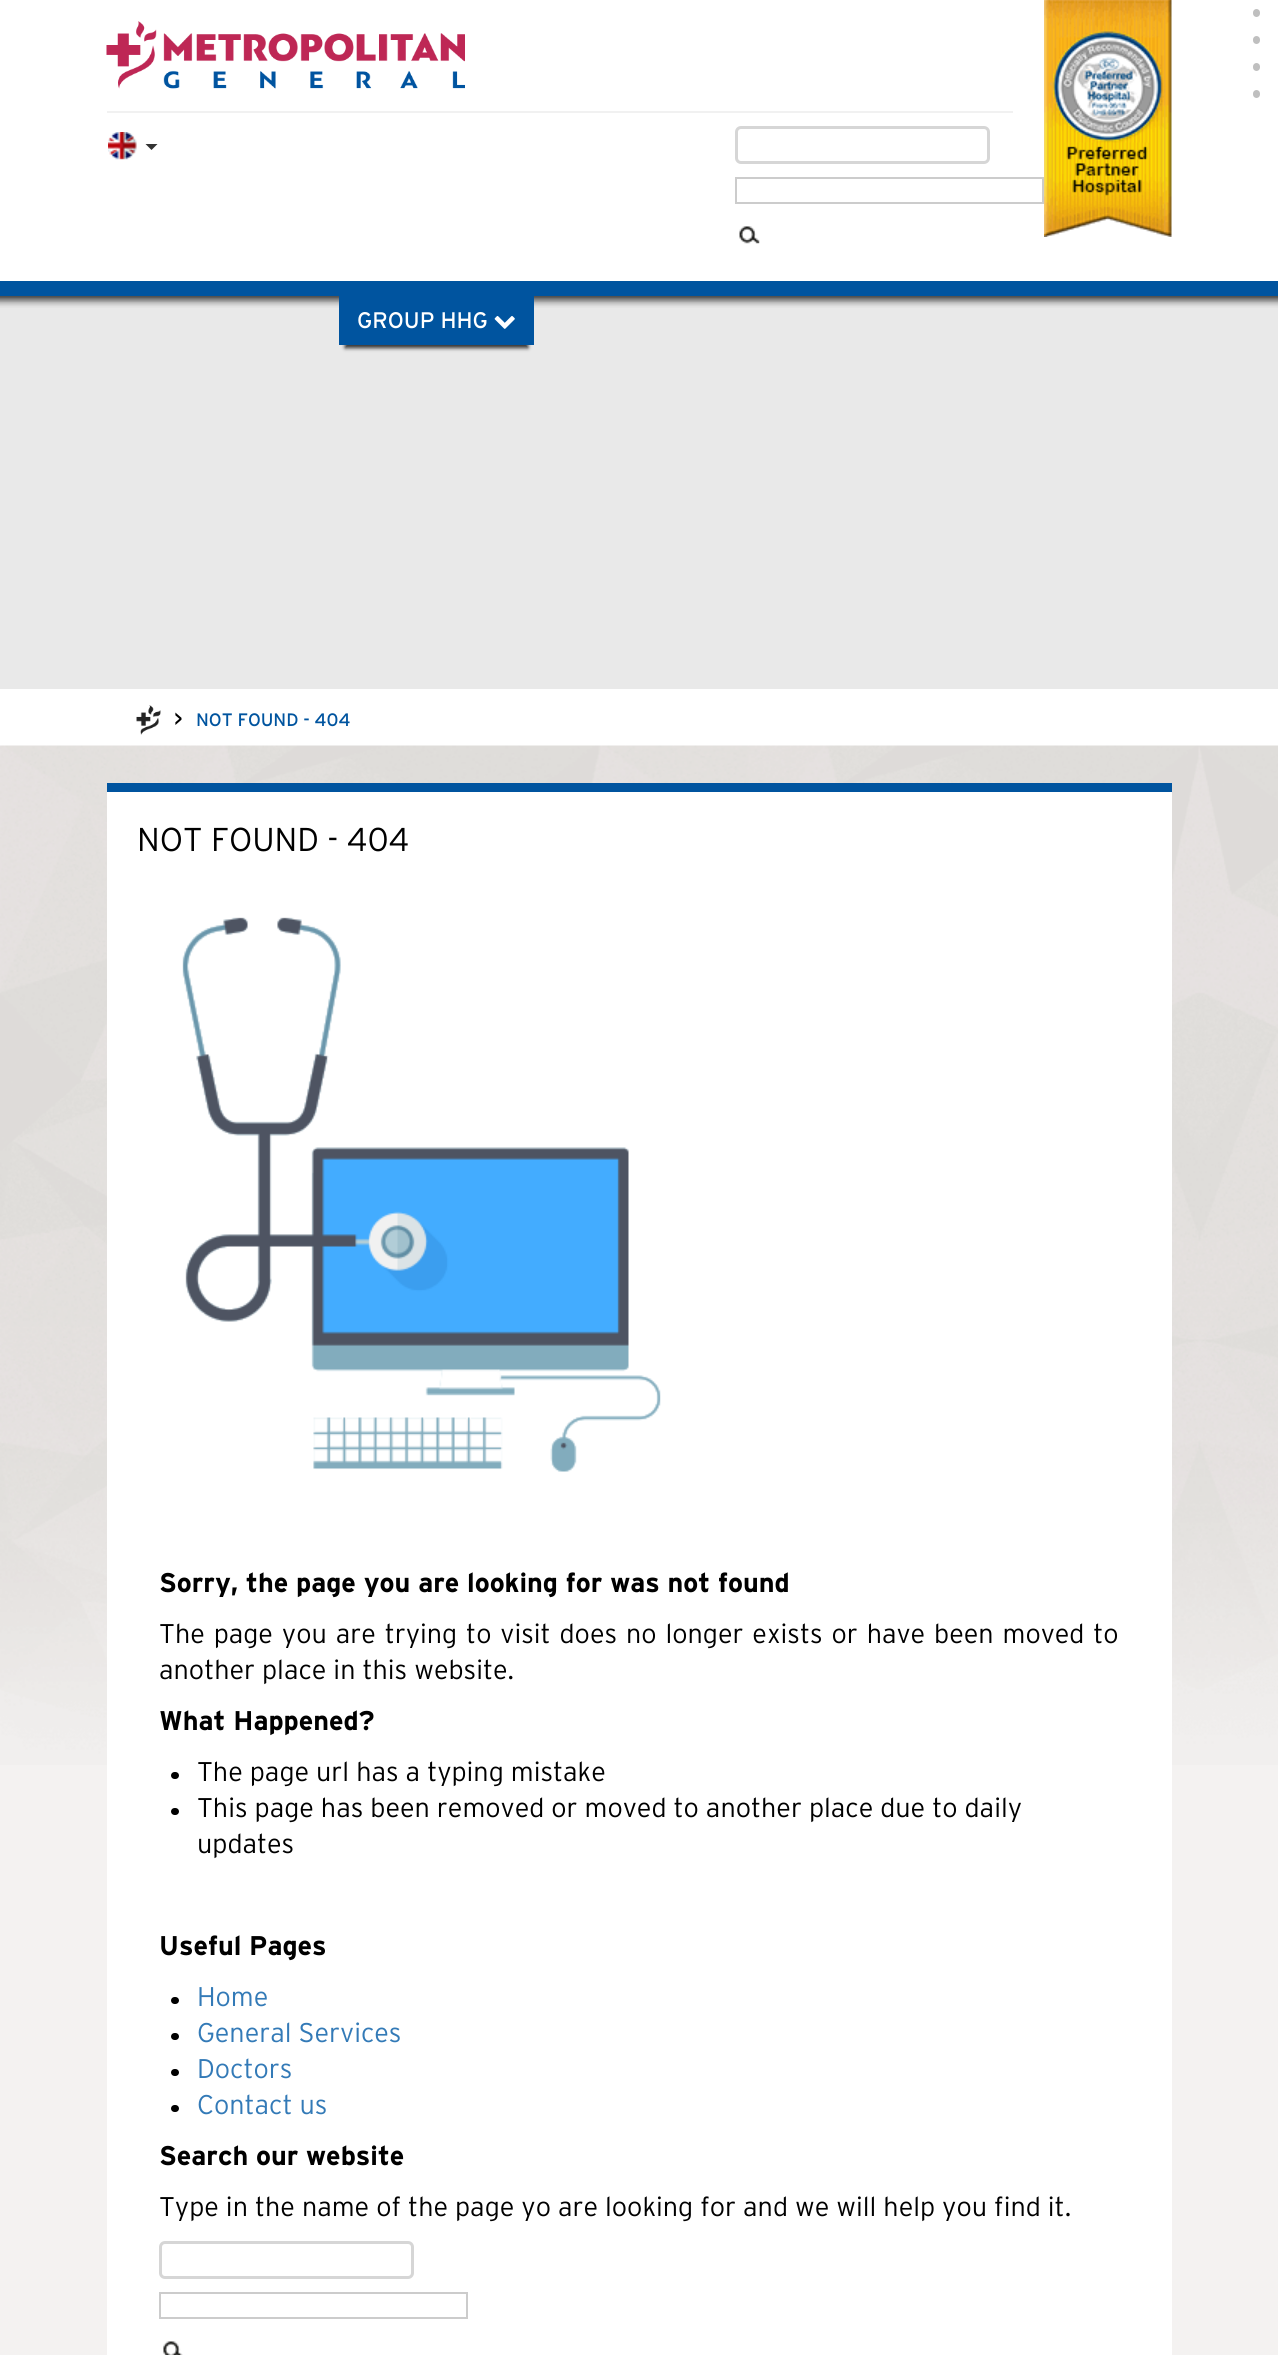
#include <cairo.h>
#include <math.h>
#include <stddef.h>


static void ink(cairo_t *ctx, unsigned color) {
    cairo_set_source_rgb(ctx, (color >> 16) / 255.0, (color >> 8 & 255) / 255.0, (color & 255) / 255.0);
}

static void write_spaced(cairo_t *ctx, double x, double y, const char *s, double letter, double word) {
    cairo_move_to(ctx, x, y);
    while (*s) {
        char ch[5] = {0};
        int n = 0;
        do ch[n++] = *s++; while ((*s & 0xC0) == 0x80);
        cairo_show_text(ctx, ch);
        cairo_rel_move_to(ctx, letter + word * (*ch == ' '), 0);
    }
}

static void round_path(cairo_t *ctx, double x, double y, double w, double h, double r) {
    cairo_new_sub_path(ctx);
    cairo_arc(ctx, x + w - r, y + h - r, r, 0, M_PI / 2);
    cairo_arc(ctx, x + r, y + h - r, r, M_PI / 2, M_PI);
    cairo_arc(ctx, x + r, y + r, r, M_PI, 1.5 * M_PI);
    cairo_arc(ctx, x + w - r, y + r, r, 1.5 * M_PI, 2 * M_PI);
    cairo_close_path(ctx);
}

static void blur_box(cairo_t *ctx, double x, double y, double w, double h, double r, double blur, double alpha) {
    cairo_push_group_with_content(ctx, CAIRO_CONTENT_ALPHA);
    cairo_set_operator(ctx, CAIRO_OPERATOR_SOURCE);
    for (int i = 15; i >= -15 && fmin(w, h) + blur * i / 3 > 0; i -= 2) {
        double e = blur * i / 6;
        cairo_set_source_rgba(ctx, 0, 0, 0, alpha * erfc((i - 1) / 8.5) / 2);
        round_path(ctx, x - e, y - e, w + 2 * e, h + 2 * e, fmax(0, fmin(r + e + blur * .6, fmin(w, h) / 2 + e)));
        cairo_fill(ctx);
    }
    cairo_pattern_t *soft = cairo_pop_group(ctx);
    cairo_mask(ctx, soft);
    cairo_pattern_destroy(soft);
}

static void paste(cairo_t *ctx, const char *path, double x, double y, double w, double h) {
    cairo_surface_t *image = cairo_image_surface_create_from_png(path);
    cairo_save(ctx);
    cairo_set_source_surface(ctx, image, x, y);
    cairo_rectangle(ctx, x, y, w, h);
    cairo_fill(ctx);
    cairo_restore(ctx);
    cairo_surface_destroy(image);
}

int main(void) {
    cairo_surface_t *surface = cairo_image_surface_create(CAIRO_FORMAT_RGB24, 1278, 2355);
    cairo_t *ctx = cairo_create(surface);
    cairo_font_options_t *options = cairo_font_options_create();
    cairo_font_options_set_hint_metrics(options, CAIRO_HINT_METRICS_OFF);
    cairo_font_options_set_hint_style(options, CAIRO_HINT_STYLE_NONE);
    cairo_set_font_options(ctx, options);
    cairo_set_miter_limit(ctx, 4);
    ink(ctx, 0xFFFFFF);
    cairo_paint(ctx);
    ink(ctx, 0x000000);
    round_path(ctx, 1253, 9, 7, 8, 3.5);
    cairo_fill(ctx);
    round_path(ctx, 1253, 36, 7, 8, 3.5);
    cairo_fill(ctx);
    round_path(ctx, 1253, 63, 7, 8, 3.5);
    cairo_fill(ctx);
    round_path(ctx, 1253, 90, 7, 8, 3.5);
    cairo_fill(ctx);
    ink(ctx, 0xE9E9E9);
    cairo_rectangle(ctx, 0, 296, 1278, 393);
    cairo_fill(ctx);
    cairo_save(ctx);
    cairo_rectangle(ctx, 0, 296, 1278, 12);
    cairo_clip(ctx);
    ink(ctx, 0x000000);
    blur_box(ctx, -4, -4, 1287, 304, 0, 4, 0.8);
    cairo_restore(ctx);
    cairo_set_source_rgba(ctx, 1, 1, 1, 0.75);
    cairo_rectangle(ctx, 1253, 9, 7, 89);
    cairo_fill(ctx);
    ink(ctx, 0x00549F);
    cairo_rectangle(ctx, 0, 281, 1278, 15);
    cairo_fill(ctx);
    ink(ctx, 0xF1F1F1);
    cairo_rectangle(ctx, 107, 111, 906, 2);
    cairo_fill(ctx);
    paste(ctx, "media/1.png", 106, 21, 359, 68);
    paste(ctx, "media/2.png", 1044, 0, 128, 237);
    paste(ctx, "media/3.png", 108, 132, 29, 28);
    ink(ctx, 0x333333);
    cairo_new_path(ctx);
    cairo_move_to(ctx, 145.5, 144);
    cairo_line_to(ctx, 157.5, 144);
    cairo_line_to(ctx, 151.5, 150);
    cairo_close_path(ctx);
    cairo_fill(ctx);
    round_path(ctx, 736.5, 127.5, 252, 35, 4.5);
    ink(ctx, 0xD6D6D6);
    cairo_set_line_width(ctx, 3);
    cairo_stroke(ctx);
    cairo_rectangle(ctx, 736, 178, 307, 25);
    ink(ctx, 0xCCCCCC);
    cairo_set_line_width(ctx, 2);
    cairo_stroke(ctx);
    paste(ctx, "media/4.png", 739, 226, 21, 18);
    ink(ctx, 0x000000);
    blur_box(ctx, 345, 311, 183, 37, 0, 2, 0.8);
    ink(ctx, 0x00549F);
    cairo_rectangle(ctx, 339, 296, 195, 49);
    cairo_fill(ctx);
    cairo_select_font_face(ctx, "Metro", CAIRO_FONT_SLANT_NORMAL, CAIRO_FONT_WEIGHT_NORMAL);
    cairo_set_font_size(ctx, 22.5);
    ink(ctx, 0xFFFFFF);
    cairo_move_to(ctx, 357, 328);
    cairo_show_text(ctx, "GROUP HHG");
    paste(ctx, "media/5.png", 494, 316, 21, 13);
    paste(ctx, "media/6.png", 136, 705, 25, 30);
    cairo_set_font_size(ctx, 21);
    ink(ctx, 0x000000);
    cairo_move_to(ctx, 174, 726);
    cairo_show_text(ctx, ">");
    cairo_set_font_size(ctx, 18);
    ink(ctx, 0x00549F);
    cairo_move_to(ctx, 196, 726);
    cairo_show_text(ctx, "NOT FOUND - 404");
    ink(ctx, 0xF4F2F1);
    cairo_rectangle(ctx, 0, 1765, 1278, 590);
    cairo_fill(ctx);
    paste(ctx, "media/7.png", 0, 745, 1278, 1020);
    ink(ctx, 0xFFFFFF);
    cairo_rectangle(ctx, 107, 792, 1065, 1563);
    cairo_fill(ctx);
    ink(ctx, 0x00549F);
    cairo_rectangle(ctx, 107, 783, 1065, 9);
    cairo_fill(ctx);
    cairo_select_font_face(ctx, "Metro Light", CAIRO_FONT_SLANT_NORMAL, CAIRO_FONT_WEIGHT_NORMAL);
    cairo_set_font_size(ctx, 33);
    ink(ctx, 0x000000);
    cairo_move_to(ctx, 137, 851);
    cairo_show_text(ctx, "NOT FOUND - 404");
    paste(ctx, "media/8.png", 182, 917, 479, 555);
    cairo_select_font_face(ctx, "Metro", CAIRO_FONT_SLANT_NORMAL, CAIRO_FONT_WEIGHT_BOLD);
    cairo_set_font_size(ctx, 27);
    cairo_move_to(ctx, 159, 1592);
    cairo_show_text(ctx, "Sorry, the page you are looking for was not found");
    cairo_select_font_face(ctx, "Metro Light", CAIRO_FONT_SLANT_NORMAL, CAIRO_FONT_WEIGHT_NORMAL);
    write_spaced(ctx, 159, 1643, "The page you are trying to visit does no longer exists or have been moved to", 0, 1.9);
    cairo_move_to(ctx, 159, 1679);
    cairo_show_text(ctx, "another place in this website.");
    cairo_select_font_face(ctx, "Metro", CAIRO_FONT_SLANT_NORMAL, CAIRO_FONT_WEIGHT_BOLD);
    cairo_move_to(ctx, 159, 1730);
    cairo_show_text(ctx, "What Happened?");
    round_path(ctx, 171, 1772, 8, 7, 3.5);
    cairo_fill(ctx);
    cairo_select_font_face(ctx, "Metro Light", CAIRO_FONT_SLANT_NORMAL, CAIRO_FONT_WEIGHT_NORMAL);
    cairo_move_to(ctx, 197, 1781);
    cairo_show_text(ctx, "The page url has a typing mistake");
    round_path(ctx, 171, 1808, 8, 7, 3.5);
    cairo_fill(ctx);
    cairo_move_to(ctx, 197, 1817);
    cairo_show_text(ctx, "This page has been removed or moved to another place due to daily");
    cairo_move_to(ctx, 197, 1853);
    cairo_show_text(ctx, "updates");
    cairo_select_font_face(ctx, "Metro", CAIRO_FONT_SLANT_NORMAL, CAIRO_FONT_WEIGHT_BOLD);
    cairo_move_to(ctx, 159, 1955);
    cairo_show_text(ctx, "Useful Pages");
    round_path(ctx, 171, 1997, 8, 7, 3.5);
    cairo_fill(ctx);
    cairo_select_font_face(ctx, "Metro Light", CAIRO_FONT_SLANT_NORMAL, CAIRO_FONT_WEIGHT_NORMAL);
    ink(ctx, 0x337AB7);
    cairo_move_to(ctx, 197, 2006);
    cairo_show_text(ctx, "Home");
    ink(ctx, 0x000000);
    round_path(ctx, 171, 2033, 8, 7, 3.5);
    cairo_fill(ctx);
    ink(ctx, 0x337AB7);
    cairo_move_to(ctx, 197, 2042);
    cairo_show_text(ctx, "General Services");
    ink(ctx, 0x000000);
    round_path(ctx, 171, 2069, 8, 7, 3.5);
    cairo_fill(ctx);
    ink(ctx, 0x337AB7);
    cairo_move_to(ctx, 197, 2078);
    cairo_show_text(ctx, "Doctors");
    ink(ctx, 0x000000);
    round_path(ctx, 171, 2105, 8, 7, 3.5);
    cairo_fill(ctx);
    ink(ctx, 0x337AB7);
    cairo_move_to(ctx, 197, 2114);
    cairo_show_text(ctx, "Contact us");
    cairo_select_font_face(ctx, "Metro", CAIRO_FONT_SLANT_NORMAL, CAIRO_FONT_WEIGHT_BOLD);
    ink(ctx, 0x000000);
    cairo_move_to(ctx, 159, 2165);
    cairo_show_text(ctx, "Search our website");
    cairo_select_font_face(ctx, "Metro Light", CAIRO_FONT_SLANT_NORMAL, CAIRO_FONT_WEIGHT_NORMAL);
    cairo_move_to(ctx, 159, 2216);
    cairo_show_text(ctx, "Type in the name of the page yo are looking for and we will help you find it.");
    round_path(ctx, 160.5, 2242.5, 252, 35, 4.5);
    ink(ctx, 0xD6D6D6);
    cairo_set_line_width(ctx, 3);
    cairo_stroke(ctx);
    cairo_rectangle(ctx, 160, 2293, 307, 25);
    ink(ctx, 0xCCCCCC);
    cairo_set_line_width(ctx, 2);
    cairo_stroke(ctx);
    paste(ctx, "media/9.png", 163, 2341, 20, 14);
    cairo_surface_write_to_png(surface, "image.png");
    cairo_font_options_destroy(options);
    cairo_destroy(ctx);
    cairo_surface_destroy(surface);
    return 0;
}
